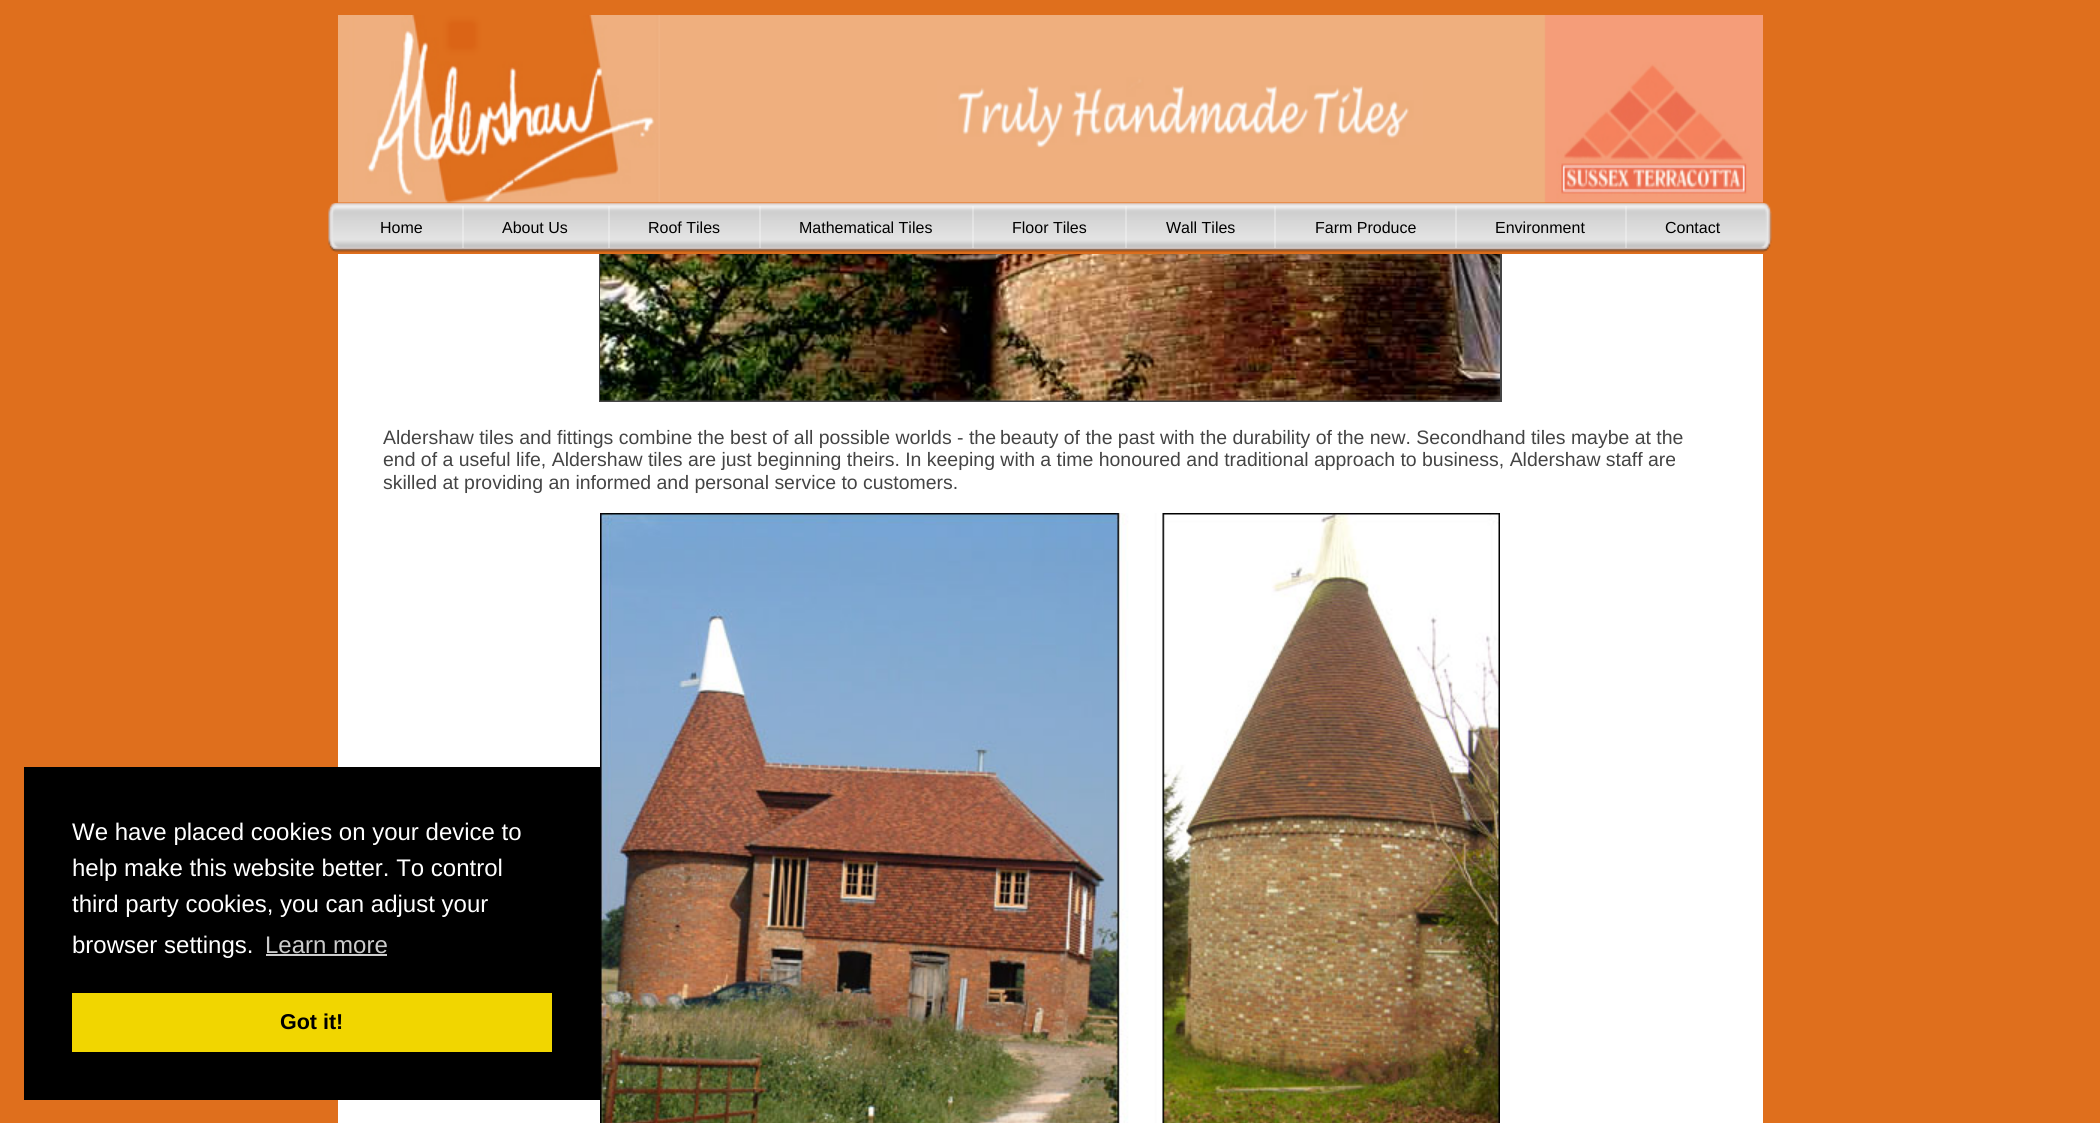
#include <cairo.h>
#include <math.h>
#include <stddef.h>

typedef struct { double x, y; const char *s; } line_t;

static void ink(cairo_t *ctx, unsigned color) {
    cairo_set_source_rgb(ctx, (color >> 16) / 255.0, (color >> 8 & 255) / 255.0, (color & 255) / 255.0);
}

static void paste(cairo_t *ctx, const char *path, double x, double y, double w, double h) {
    cairo_surface_t *image = cairo_image_surface_create_from_png(path);
    cairo_save(ctx);
    cairo_set_source_surface(ctx, image, x, y);
    cairo_rectangle(ctx, x, y, w, h);
    cairo_fill(ctx);
    cairo_restore(ctx);
    cairo_surface_destroy(image);
}

int main(void) {
    cairo_surface_t *surface = cairo_image_surface_create(CAIRO_FORMAT_RGB24, 2100, 1123);
    cairo_t *ctx = cairo_create(surface);
    cairo_font_options_t *options = cairo_font_options_create();
    cairo_font_options_set_hint_metrics(options, CAIRO_HINT_METRICS_OFF);
    cairo_font_options_set_hint_style(options, CAIRO_HINT_STYLE_NONE);
    cairo_set_font_options(ctx, options);
    cairo_set_miter_limit(ctx, 4);
    ink(ctx, 0xDF6F1D);
    cairo_paint(ctx);
    ink(ctx, 0xFFFFFF);
    cairo_rectangle(ctx, 338, 254, 1425, 869);
    cairo_fill(ctx);
    cairo_rectangle(ctx, 600, -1, 901, 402);
    ink(ctx, 0x444444);
    cairo_stroke(ctx);
    ink(ctx, 0xDF6F1D);
    cairo_rectangle(ctx, 599, 0, 903, 254);
    cairo_fill(ctx);
    paste(ctx, "media/1.png", 338, 15, 1425, 188);
    paste(ctx, "media/2.png", 328, 203, 1444, 50);
    cairo_select_font_face(ctx, "Liberation Sans", CAIRO_FONT_SLANT_NORMAL, CAIRO_FONT_WEIGHT_NORMAL);
    cairo_set_font_size(ctx, 16);
    ink(ctx, 0x000000);
    cairo_move_to(ctx, 380, 233);
    cairo_show_text(ctx, "Home");
    cairo_move_to(ctx, 502, 233);
    cairo_show_text(ctx, "About Us");
    cairo_set_source_rgba(ctx, 1, 1, 1, 0.3);
    cairo_rectangle(ctx, 462, 206, 2, 42);
    cairo_fill(ctx);
    ink(ctx, 0x000000);
    cairo_move_to(ctx, 648, 233);
    cairo_show_text(ctx, "Roof Tiles");
    cairo_set_source_rgba(ctx, 1, 1, 1, 0.3);
    cairo_rectangle(ctx, 608, 206, 2, 42);
    cairo_fill(ctx);
    ink(ctx, 0x000000);
    cairo_move_to(ctx, 799, 233);
    cairo_show_text(ctx, "Mathematical Tiles");
    cairo_set_source_rgba(ctx, 1, 1, 1, 0.3);
    cairo_rectangle(ctx, 759, 206, 2, 42);
    cairo_fill(ctx);
    ink(ctx, 0x000000);
    cairo_move_to(ctx, 1012, 233);
    cairo_show_text(ctx, "Floor Tiles");
    cairo_set_source_rgba(ctx, 1, 1, 1, 0.3);
    cairo_rectangle(ctx, 972, 206, 2, 42);
    cairo_fill(ctx);
    ink(ctx, 0x000000);
    cairo_move_to(ctx, 1166, 233);
    cairo_show_text(ctx, "Wall Tiles");
    cairo_set_source_rgba(ctx, 1, 1, 1, 0.3);
    cairo_rectangle(ctx, 1125, 206, 2, 42);
    cairo_fill(ctx);
    ink(ctx, 0x000000);
    cairo_move_to(ctx, 1315, 233);
    cairo_show_text(ctx, "Farm Produce");
    cairo_set_source_rgba(ctx, 1, 1, 1, 0.3);
    cairo_rectangle(ctx, 1274, 206, 2, 42);
    cairo_fill(ctx);
    ink(ctx, 0x000000);
    cairo_move_to(ctx, 1495, 233);
    cairo_show_text(ctx, "Environment");
    cairo_set_source_rgba(ctx, 1, 1, 1, 0.3);
    cairo_rectangle(ctx, 1455, 206, 2, 42);
    cairo_fill(ctx);
    ink(ctx, 0x000000);
    cairo_move_to(ctx, 1665, 233);
    cairo_show_text(ctx, "Contact");
    cairo_set_source_rgba(ctx, 1, 1, 1, 0.3);
    cairo_rectangle(ctx, 1625, 206, 2, 42);
    cairo_fill(ctx);
    paste(ctx, "media/3.png", 600, 254, 900, 147);
    cairo_set_font_size(ctx, 19.45);
    ink(ctx, 0x444444);
    {
        static const line_t items[] = {
            {383, 444, "Aldershaw tiles and fittings combine the best of all possible worlds - the"},
            {1000, 444, "beauty of the past with the durability of the new. Secondhand tiles maybe at the"},
            {383, 466, "end of a useful life, Aldershaw tiles are just beginning theirs. In keeping with a time honoured and traditional approach to business, Aldershaw staff are"},
            {383, 489, "skilled at providing an informed and personal service to customers."},
        };
        for (size_t i = 0; i < sizeof items / sizeof *items; i++) {
            cairo_move_to(ctx, items[i].x, items[i].y);
            cairo_show_text(ctx, items[i].s);
        }
    }
    paste(ctx, "media/4.png", 600, 513, 900, 610);
    ink(ctx, 0x000000);
    cairo_rectangle(ctx, 24, 767, 576, 333);
    cairo_fill(ctx);
    cairo_set_font_size(ctx, 24);
    ink(ctx, 0xFFFFFF);
    {
        static const line_t items[] = {
            {72, 840, "We have placed cookies on your device to"},
            {72, 876, "help make this website better. To control"},
            {72, 912, "third party cookies, you can adjust your"},
            {72, 953, "browser settings."},
        };
        for (size_t i = 0; i < sizeof items / sizeof *items; i++) {
            cairo_move_to(ctx, items[i].x, items[i].y);
            cairo_show_text(ctx, items[i].s);
        }
    }
    ink(ctx, 0xCCCCCC);
    cairo_move_to(ctx, 265, 953);
    cairo_show_text(ctx, "Learn more");
    cairo_rectangle(ctx, 266, 954, 121, 2);
    cairo_fill(ctx);
    ink(ctx, 0xF1D600);
    cairo_rectangle(ctx, 72, 993, 480, 59);
    cairo_fill(ctx);
    cairo_select_font_face(ctx, "Liberation Sans", CAIRO_FONT_SLANT_NORMAL, CAIRO_FONT_WEIGHT_BOLD);
    cairo_set_font_size(ctx, 21.5);
    ink(ctx, 0x000000);
    cairo_move_to(ctx, 280, 1029);
    cairo_show_text(ctx, "Got it!");
    cairo_surface_write_to_png(surface, "image.png");
    cairo_font_options_destroy(options);
    cairo_destroy(ctx);
    cairo_surface_destroy(surface);
    return 0;
}
